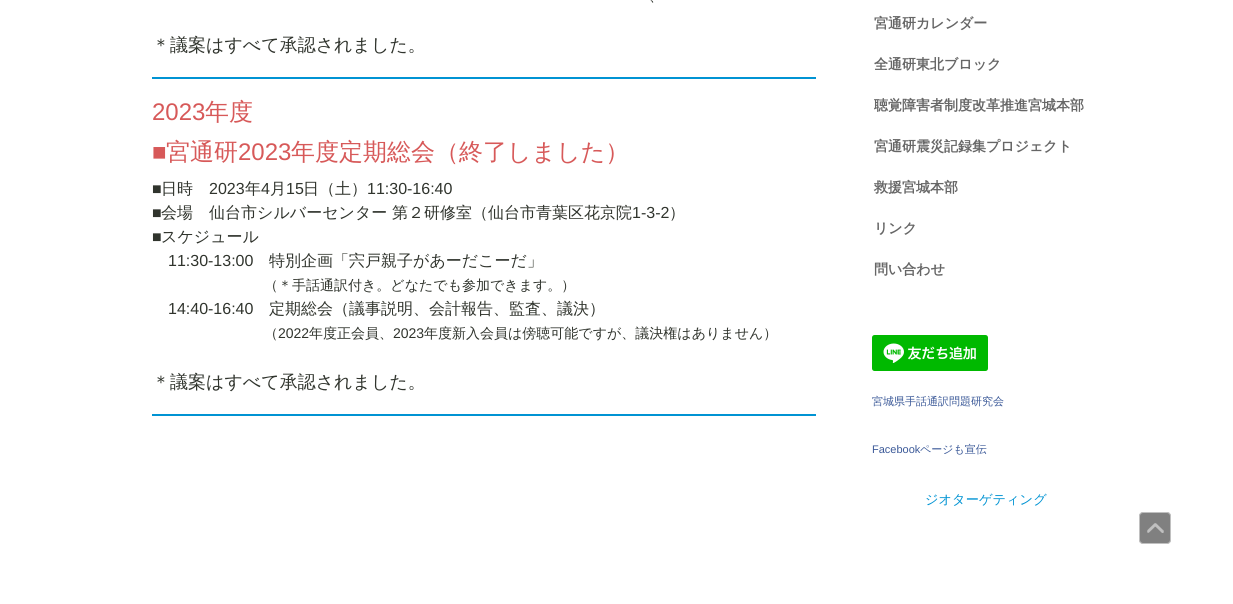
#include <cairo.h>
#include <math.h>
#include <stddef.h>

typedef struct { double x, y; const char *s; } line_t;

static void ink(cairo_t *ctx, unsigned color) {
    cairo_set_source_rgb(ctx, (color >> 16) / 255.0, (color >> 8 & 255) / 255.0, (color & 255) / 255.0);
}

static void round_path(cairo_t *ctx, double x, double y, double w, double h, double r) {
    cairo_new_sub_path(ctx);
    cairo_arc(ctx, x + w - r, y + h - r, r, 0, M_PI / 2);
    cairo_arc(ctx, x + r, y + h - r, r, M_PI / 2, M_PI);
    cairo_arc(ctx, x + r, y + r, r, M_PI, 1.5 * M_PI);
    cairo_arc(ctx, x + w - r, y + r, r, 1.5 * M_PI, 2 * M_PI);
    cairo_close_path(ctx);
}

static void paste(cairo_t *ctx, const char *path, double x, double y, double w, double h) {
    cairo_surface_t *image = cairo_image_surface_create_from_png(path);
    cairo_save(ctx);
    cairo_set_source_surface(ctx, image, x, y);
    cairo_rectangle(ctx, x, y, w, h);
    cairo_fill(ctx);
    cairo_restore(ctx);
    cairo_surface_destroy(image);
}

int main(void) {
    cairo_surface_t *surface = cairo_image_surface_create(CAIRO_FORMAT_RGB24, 1233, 604);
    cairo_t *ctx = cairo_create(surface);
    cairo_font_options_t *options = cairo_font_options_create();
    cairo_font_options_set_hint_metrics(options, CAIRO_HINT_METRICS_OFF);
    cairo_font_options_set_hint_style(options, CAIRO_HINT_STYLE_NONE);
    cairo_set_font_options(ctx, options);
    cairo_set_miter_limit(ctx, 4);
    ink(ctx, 0xFFFFFF);
    cairo_paint(ctx);
    cairo_select_font_face(ctx, "WenQuanYi Zen Hei Medium", CAIRO_FONT_SLANT_NORMAL, CAIRO_FONT_WEIGHT_NORMAL);
    cairo_set_font_size(ctx, 14);
    ink(ctx, 0x30342D);
    cairo_move_to(ctx, 649, 1);
    cairo_show_text(ctx, "、");
    cairo_set_font_size(ctx, 18);
    cairo_move_to(ctx, 152, 51);
    cairo_show_text(ctx, "＊議案はすべて承認されました。");
    ink(ctx, 0x0093D3);
    cairo_rectangle(ctx, 152, 77, 664, 2);
    cairo_fill(ctx);
    cairo_select_font_face(ctx, "Liberation Sans", CAIRO_FONT_SLANT_NORMAL, CAIRO_FONT_WEIGHT_NORMAL);
    cairo_set_font_size(ctx, 24);
    ink(ctx, 0xD75959);
    cairo_move_to(ctx, 152, 120);
    cairo_show_text(ctx, "2023");
    cairo_select_font_face(ctx, "WenQuanYi Zen Hei Medium", CAIRO_FONT_SLANT_NORMAL, CAIRO_FONT_WEIGHT_NORMAL);
    cairo_move_to(ctx, 205, 120);
    cairo_show_text(ctx, "年度");
    cairo_select_font_face(ctx, "Liberation Sans", CAIRO_FONT_SLANT_NORMAL, CAIRO_FONT_WEIGHT_NORMAL);
    cairo_move_to(ctx, 152, 160);
    cairo_show_text(ctx, "■");
    cairo_select_font_face(ctx, "WenQuanYi Zen Hei Medium", CAIRO_FONT_SLANT_NORMAL, CAIRO_FONT_WEIGHT_NORMAL);
    cairo_move_to(ctx, 166, 160);
    cairo_show_text(ctx, "宮通研");
    cairo_select_font_face(ctx, "Liberation Sans", CAIRO_FONT_SLANT_NORMAL, CAIRO_FONT_WEIGHT_NORMAL);
    cairo_move_to(ctx, 238, 160);
    cairo_show_text(ctx, "2023");
    cairo_select_font_face(ctx, "WenQuanYi Zen Hei Medium", CAIRO_FONT_SLANT_NORMAL, CAIRO_FONT_WEIGHT_NORMAL);
    cairo_move_to(ctx, 291, 160);
    cairo_show_text(ctx, "年度定期総会（終了しました）");
    cairo_select_font_face(ctx, "Liberation Sans", CAIRO_FONT_SLANT_NORMAL, CAIRO_FONT_WEIGHT_NORMAL);
    cairo_set_font_size(ctx, 16);
    ink(ctx, 0x30342D);
    cairo_move_to(ctx, 152, 194);
    cairo_show_text(ctx, "■");
    cairo_select_font_face(ctx, "WenQuanYi Zen Hei Medium", CAIRO_FONT_SLANT_NORMAL, CAIRO_FONT_WEIGHT_NORMAL);
    cairo_move_to(ctx, 161, 194);
    cairo_show_text(ctx, "日時");
    cairo_select_font_face(ctx, "Liberation Sans", CAIRO_FONT_SLANT_NORMAL, CAIRO_FONT_WEIGHT_NORMAL);
    cairo_move_to(ctx, 209, 194);
    cairo_show_text(ctx, "2023");
    cairo_select_font_face(ctx, "WenQuanYi Zen Hei Medium", CAIRO_FONT_SLANT_NORMAL, CAIRO_FONT_WEIGHT_NORMAL);
    cairo_move_to(ctx, 245, 194);
    cairo_show_text(ctx, "年");
    cairo_select_font_face(ctx, "Liberation Sans", CAIRO_FONT_SLANT_NORMAL, CAIRO_FONT_WEIGHT_NORMAL);
    cairo_move_to(ctx, 261, 194);
    cairo_show_text(ctx, "4");
    cairo_select_font_face(ctx, "WenQuanYi Zen Hei Medium", CAIRO_FONT_SLANT_NORMAL, CAIRO_FONT_WEIGHT_NORMAL);
    cairo_move_to(ctx, 270, 194);
    cairo_show_text(ctx, "月");
    cairo_select_font_face(ctx, "Liberation Sans", CAIRO_FONT_SLANT_NORMAL, CAIRO_FONT_WEIGHT_NORMAL);
    cairo_move_to(ctx, 286, 194);
    cairo_show_text(ctx, "15");
    cairo_select_font_face(ctx, "WenQuanYi Zen Hei Medium", CAIRO_FONT_SLANT_NORMAL, CAIRO_FONT_WEIGHT_NORMAL);
    cairo_move_to(ctx, 303, 194);
    cairo_show_text(ctx, "日（土）");
    cairo_select_font_face(ctx, "Liberation Sans", CAIRO_FONT_SLANT_NORMAL, CAIRO_FONT_WEIGHT_NORMAL);
    cairo_move_to(ctx, 367, 194);
    cairo_show_text(ctx, "11:30-16:40");
    cairo_move_to(ctx, 152, 218);
    cairo_show_text(ctx, "■");
    cairo_select_font_face(ctx, "WenQuanYi Zen Hei Medium", CAIRO_FONT_SLANT_NORMAL, CAIRO_FONT_WEIGHT_NORMAL);
    cairo_move_to(ctx, 161, 218);
    cairo_show_text(ctx, "会場　仙台市シルバーセンター 第２研修室（仙台市青葉区花京院");
    cairo_select_font_face(ctx, "Liberation Sans", CAIRO_FONT_SLANT_NORMAL, CAIRO_FONT_WEIGHT_NORMAL);
    cairo_move_to(ctx, 632, 218);
    cairo_show_text(ctx, "1-3-2");
    cairo_select_font_face(ctx, "WenQuanYi Zen Hei Medium", CAIRO_FONT_SLANT_NORMAL, CAIRO_FONT_WEIGHT_NORMAL);
    cairo_move_to(ctx, 669, 218);
    cairo_show_text(ctx, "）");
    cairo_select_font_face(ctx, "Liberation Sans", CAIRO_FONT_SLANT_NORMAL, CAIRO_FONT_WEIGHT_NORMAL);
    cairo_move_to(ctx, 152, 242);
    cairo_show_text(ctx, "■");
    cairo_select_font_face(ctx, "WenQuanYi Zen Hei Medium", CAIRO_FONT_SLANT_NORMAL, CAIRO_FONT_WEIGHT_NORMAL);
    cairo_move_to(ctx, 161, 242);
    cairo_show_text(ctx, "スケジュール");
    cairo_select_font_face(ctx, "Liberation Sans", CAIRO_FONT_SLANT_NORMAL, CAIRO_FONT_WEIGHT_NORMAL);
    cairo_move_to(ctx, 168, 266);
    cairo_show_text(ctx, "11:30-13:00");
    cairo_select_font_face(ctx, "WenQuanYi Zen Hei Medium", CAIRO_FONT_SLANT_NORMAL, CAIRO_FONT_WEIGHT_NORMAL);
    cairo_move_to(ctx, 269, 266);
    cairo_show_text(ctx, "特別企画「宍戸親子があーだこーだ」");
    cairo_set_font_size(ctx, 14);
    cairo_move_to(ctx, 264, 290);
    cairo_show_text(ctx, "（＊手話通訳付き。どなたでも参加できます。）");
    cairo_select_font_face(ctx, "Liberation Sans", CAIRO_FONT_SLANT_NORMAL, CAIRO_FONT_WEIGHT_NORMAL);
    cairo_set_font_size(ctx, 16);
    cairo_move_to(ctx, 168, 314);
    cairo_show_text(ctx, "14:40-16:40");
    cairo_select_font_face(ctx, "WenQuanYi Zen Hei Medium", CAIRO_FONT_SLANT_NORMAL, CAIRO_FONT_WEIGHT_NORMAL);
    cairo_move_to(ctx, 269, 314);
    cairo_show_text(ctx, "定期総会（議事説明、会計報告、監査、議決）");
    cairo_set_font_size(ctx, 14);
    cairo_move_to(ctx, 264, 338);
    cairo_show_text(ctx, "（");
    cairo_select_font_face(ctx, "Liberation Sans", CAIRO_FONT_SLANT_NORMAL, CAIRO_FONT_WEIGHT_NORMAL);
    cairo_move_to(ctx, 278, 338);
    cairo_show_text(ctx, "2022");
    cairo_select_font_face(ctx, "WenQuanYi Zen Hei Medium", CAIRO_FONT_SLANT_NORMAL, CAIRO_FONT_WEIGHT_NORMAL);
    cairo_move_to(ctx, 309, 338);
    cairo_show_text(ctx, "年度正会員、");
    cairo_select_font_face(ctx, "Liberation Sans", CAIRO_FONT_SLANT_NORMAL, CAIRO_FONT_WEIGHT_NORMAL);
    cairo_move_to(ctx, 393, 338);
    cairo_show_text(ctx, "2023");
    cairo_select_font_face(ctx, "WenQuanYi Zen Hei Medium", CAIRO_FONT_SLANT_NORMAL, CAIRO_FONT_WEIGHT_NORMAL);
    cairo_move_to(ctx, 424, 338);
    cairo_show_text(ctx, "年度新入会員は傍聴可能ですが、議決権はありません）");
    cairo_set_font_size(ctx, 18);
    cairo_move_to(ctx, 152, 388);
    cairo_show_text(ctx, "＊議案はすべて承認されました。");
    ink(ctx, 0x0093D3);
    cairo_rectangle(ctx, 152, 414, 664, 2);
    cairo_fill(ctx);
    cairo_select_font_face(ctx, "WenQuanYi Zen Hei", CAIRO_FONT_SLANT_NORMAL, CAIRO_FONT_WEIGHT_BOLD);
    cairo_set_font_size(ctx, 14);
    ink(ctx, 0x666666);
    {
        static const line_t items[] = {
            {874, 28, "宮通研カレンダー"},
            {874, 69, "全通研東北ブロック"},
            {874, 110, "聴覚障害者制度改革推進宮城本部"},
            {874, 151, "宮通研震災記録集プロジェクト"},
            {874, 192, "救援宮城本部"},
            {874, 233, "リンク"},
            {874, 274, "問い合わせ"},
        };
        for (size_t i = 0; i < sizeof items / sizeof *items; i++) {
            cairo_move_to(ctx, items[i].x, items[i].y);
            cairo_show_text(ctx, items[i].s);
        }
    }
    paste(ctx, "media/1.png", 872, 335, 116, 36);
    cairo_select_font_face(ctx, "WenQuanYi Zen Hei Medium", CAIRO_FONT_SLANT_NORMAL, CAIRO_FONT_WEIGHT_NORMAL);
    cairo_set_font_size(ctx, 11);
    ink(ctx, 0x3B5998);
    cairo_move_to(ctx, 872, 405);
    cairo_show_text(ctx, "宮城県手話通訳問題研究会");
    cairo_select_font_face(ctx, "Liberation Sans", CAIRO_FONT_SLANT_NORMAL, CAIRO_FONT_WEIGHT_NORMAL);
    cairo_move_to(ctx, 872, 453);
    cairo_show_text(ctx, "Facebook");
    cairo_select_font_face(ctx, "WenQuanYi Zen Hei Medium", CAIRO_FONT_SLANT_NORMAL, CAIRO_FONT_WEIGHT_NORMAL);
    cairo_move_to(ctx, 920, 453);
    cairo_show_text(ctx, "ページも宣伝");
    cairo_set_font_size(ctx, 13.25);
    ink(ctx, 0x0093D3);
    cairo_move_to(ctx, 925, 504);
    cairo_show_text(ctx, "ジオターゲティング");
    ink(ctx, 0x808080);
    round_path(ctx, 1139, 512, 32, 32, 4);
    cairo_fill(ctx);
    round_path(ctx, 1139.5, 512.5, 31, 31, 3.5);
    cairo_set_source_rgba(ctx, 1, 1, 1, 0.5);
    cairo_set_line_width(ctx, 1);
    cairo_stroke(ctx);
    paste(ctx, "media/2.png", 1147, 523, 17, 10);
    cairo_surface_write_to_png(surface, "image.png");
    cairo_font_options_destroy(options);
    cairo_destroy(ctx);
    cairo_surface_destroy(surface);
    return 0;
}
